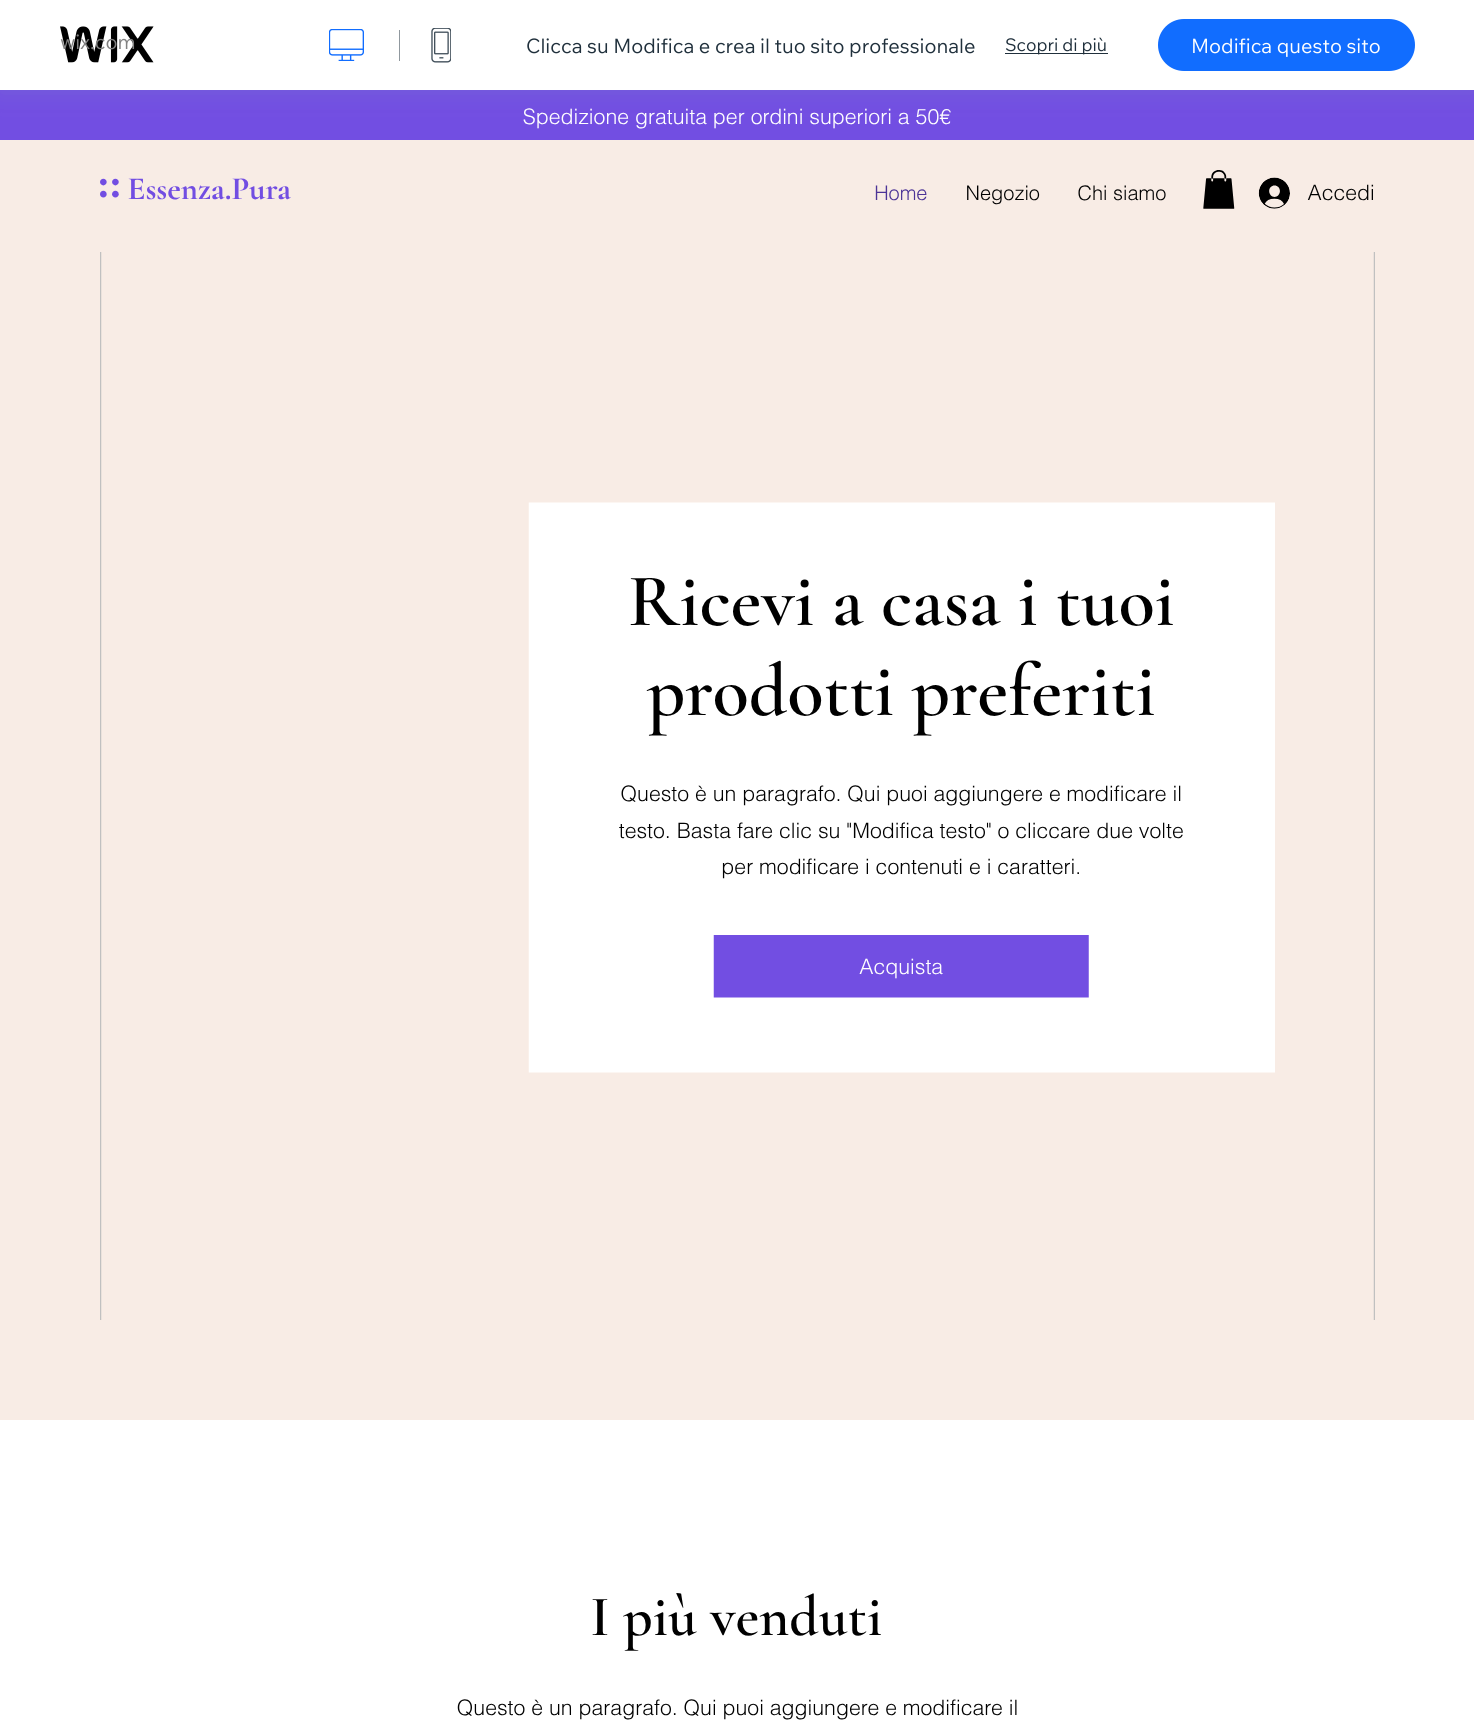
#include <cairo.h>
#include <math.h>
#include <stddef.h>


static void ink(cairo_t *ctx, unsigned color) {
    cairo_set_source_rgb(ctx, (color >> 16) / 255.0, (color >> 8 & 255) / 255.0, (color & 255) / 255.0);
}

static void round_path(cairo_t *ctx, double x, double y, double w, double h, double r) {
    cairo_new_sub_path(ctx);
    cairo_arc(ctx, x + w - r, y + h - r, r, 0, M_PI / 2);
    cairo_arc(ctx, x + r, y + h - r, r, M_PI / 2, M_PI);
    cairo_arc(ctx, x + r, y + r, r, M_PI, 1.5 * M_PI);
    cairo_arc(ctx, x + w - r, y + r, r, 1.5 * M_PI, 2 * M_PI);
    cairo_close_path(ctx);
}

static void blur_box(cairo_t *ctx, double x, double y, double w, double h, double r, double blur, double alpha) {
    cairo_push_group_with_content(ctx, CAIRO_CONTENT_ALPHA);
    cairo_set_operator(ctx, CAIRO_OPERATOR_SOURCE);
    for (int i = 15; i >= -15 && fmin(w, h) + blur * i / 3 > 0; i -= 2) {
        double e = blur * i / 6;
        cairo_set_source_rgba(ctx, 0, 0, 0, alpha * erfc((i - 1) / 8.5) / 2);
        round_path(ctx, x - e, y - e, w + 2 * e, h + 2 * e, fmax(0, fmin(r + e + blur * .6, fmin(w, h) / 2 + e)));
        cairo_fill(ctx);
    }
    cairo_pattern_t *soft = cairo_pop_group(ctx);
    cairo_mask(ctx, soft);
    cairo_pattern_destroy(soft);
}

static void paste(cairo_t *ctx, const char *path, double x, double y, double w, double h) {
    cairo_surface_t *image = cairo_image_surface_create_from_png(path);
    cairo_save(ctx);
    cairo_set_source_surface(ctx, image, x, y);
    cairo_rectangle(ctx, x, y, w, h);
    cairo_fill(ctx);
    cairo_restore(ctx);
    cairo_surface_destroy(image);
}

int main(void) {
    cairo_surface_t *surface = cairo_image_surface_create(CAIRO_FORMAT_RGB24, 1474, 1721);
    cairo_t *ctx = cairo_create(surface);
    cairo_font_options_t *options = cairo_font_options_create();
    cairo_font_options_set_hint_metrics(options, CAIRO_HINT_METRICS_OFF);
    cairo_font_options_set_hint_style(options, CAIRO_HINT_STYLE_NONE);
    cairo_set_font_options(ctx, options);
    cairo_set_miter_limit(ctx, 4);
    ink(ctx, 0xFFFFFF);
    cairo_paint(ctx);
    paste(ctx, "media/4.png", 0, 90, 1474, 1631);
    ink(ctx, 0x81A2B6);
    blur_box(ctx, 0, 3, 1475, 90, 0, 11, 0.2);
    ink(ctx, 0xFFFFFF);
    cairo_rectangle(ctx, 0, 0, 1474, 90);
    cairo_fill(ctx);
    paste(ctx, "media/1.png", 60, 26, 94, 37);
    cairo_select_font_face(ctx, "Wix Madefor Text", CAIRO_FONT_SLANT_NORMAL, CAIRO_FONT_WEIGHT_NORMAL);
    cairo_set_font_size(ctx, 20);
    ink(ctx, 0x818181);
    cairo_move_to(ctx, 60, 49);
    cairo_show_text(ctx, "wix.com");
    paste(ctx, "media/2.png", 329, 29, 35, 32);
    ink(ctx, 0x90989E);
    cairo_rectangle(ctx, 399, 30, 1, 31);
    cairo_fill(ctx);
    paste(ctx, "media/3.png", 431, 28, 20, 35);
    ink(ctx, 0x20303C);
    cairo_move_to(ctx, 526, 53);
    cairo_show_text(ctx, "Clicca su Modifica e crea il tuo sito professionale");
    cairo_rectangle(ctx, 1005, 53, 103, 1);
    cairo_fill(ctx);
    cairo_set_font_size(ctx, 17.5);
    cairo_move_to(ctx, 1005, 51);
    cairo_show_text(ctx, "Scopri di più");
    ink(ctx, 0x116DFF);
    round_path(ctx, 1158, 19, 257, 52, 26);
    cairo_fill(ctx);
    cairo_set_font_size(ctx, 20);
    ink(ctx, 0xFFFFFF);
    cairo_move_to(ctx, 1191, 53);
    cairo_show_text(ctx, "Modifica questo sito");
    cairo_surface_write_to_png(surface, "image.png");
    cairo_font_options_destroy(options);
    cairo_destroy(ctx);
    cairo_surface_destroy(surface);
    return 0;
}
